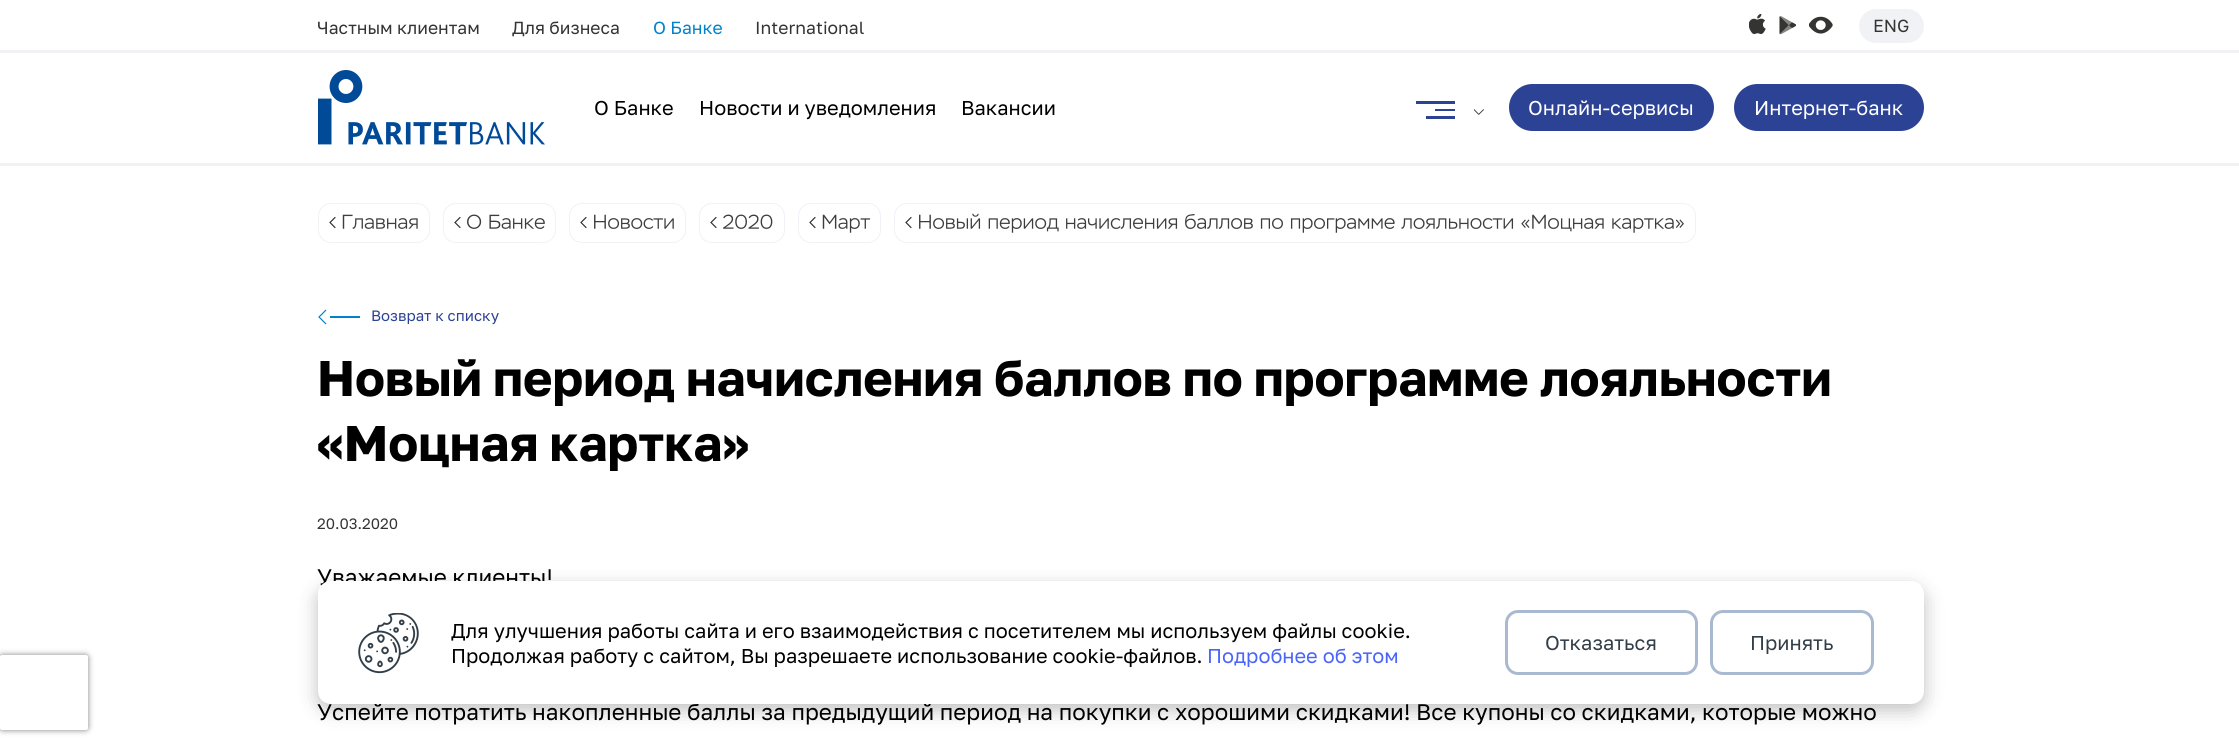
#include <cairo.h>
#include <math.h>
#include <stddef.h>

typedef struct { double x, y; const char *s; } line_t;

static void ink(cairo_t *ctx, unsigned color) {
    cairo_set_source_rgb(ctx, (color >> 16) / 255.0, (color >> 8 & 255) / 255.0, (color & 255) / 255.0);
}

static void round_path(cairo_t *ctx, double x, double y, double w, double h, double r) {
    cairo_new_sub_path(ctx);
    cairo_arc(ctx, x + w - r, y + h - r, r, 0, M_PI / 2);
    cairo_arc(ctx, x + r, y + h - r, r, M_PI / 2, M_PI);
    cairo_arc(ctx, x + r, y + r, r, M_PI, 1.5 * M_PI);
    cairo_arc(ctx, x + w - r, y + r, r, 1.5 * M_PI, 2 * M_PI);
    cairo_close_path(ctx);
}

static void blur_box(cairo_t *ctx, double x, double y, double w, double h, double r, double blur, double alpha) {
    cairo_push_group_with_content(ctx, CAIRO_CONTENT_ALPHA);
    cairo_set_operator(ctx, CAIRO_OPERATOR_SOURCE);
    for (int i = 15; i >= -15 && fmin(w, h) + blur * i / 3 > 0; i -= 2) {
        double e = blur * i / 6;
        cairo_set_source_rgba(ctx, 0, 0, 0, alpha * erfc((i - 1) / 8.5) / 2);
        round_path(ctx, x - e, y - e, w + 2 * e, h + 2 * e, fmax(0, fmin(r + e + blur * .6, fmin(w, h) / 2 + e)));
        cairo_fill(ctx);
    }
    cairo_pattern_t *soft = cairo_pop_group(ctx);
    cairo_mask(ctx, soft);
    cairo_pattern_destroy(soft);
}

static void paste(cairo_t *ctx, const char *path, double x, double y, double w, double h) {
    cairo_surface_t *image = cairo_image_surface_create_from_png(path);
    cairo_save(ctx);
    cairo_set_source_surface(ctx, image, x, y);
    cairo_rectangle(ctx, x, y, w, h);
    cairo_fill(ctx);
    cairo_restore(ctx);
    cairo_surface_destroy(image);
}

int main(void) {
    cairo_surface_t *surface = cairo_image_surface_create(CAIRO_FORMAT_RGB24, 2239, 747);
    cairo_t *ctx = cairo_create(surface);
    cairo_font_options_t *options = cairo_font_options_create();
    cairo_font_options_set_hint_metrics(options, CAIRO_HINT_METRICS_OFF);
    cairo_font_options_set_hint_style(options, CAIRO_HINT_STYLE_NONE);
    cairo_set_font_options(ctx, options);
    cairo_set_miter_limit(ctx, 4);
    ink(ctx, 0xFFFFFF);
    cairo_paint(ctx);
    ink(ctx, 0xF0F2F5);
    cairo_rectangle(ctx, 0, 50, 2239, 3);
    cairo_fill(ctx);
    cairo_select_font_face(ctx, "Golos", CAIRO_FONT_SLANT_NORMAL, CAIRO_FONT_WEIGHT_NORMAL);
    cairo_set_font_size(ctx, 17.5);
    ink(ctx, 0x343532);
    cairo_move_to(ctx, 317, 34);
    cairo_show_text(ctx, "Частным клиентам");
    cairo_move_to(ctx, 512, 34);
    cairo_show_text(ctx, "Для бизнеса");
    ink(ctx, 0x0083CA);
    cairo_move_to(ctx, 653, 34);
    cairo_show_text(ctx, "О Банке");
    ink(ctx, 0x343532);
    cairo_move_to(ctx, 755, 34);
    cairo_show_text(ctx, "International");
    paste(ctx, "media/1.png", 1749, 14, 17, 21);
    paste(ctx, "media/2.png", 1779, 16, 17, 19);
    paste(ctx, "media/3.png", 1809, 16, 24, 18);
    ink(ctx, 0xF0F2F5);
    round_path(ctx, 1859, 9, 65, 34, 17);
    cairo_fill(ctx);
    ink(ctx, 0x343532);
    cairo_move_to(ctx, 1873, 32);
    cairo_show_text(ctx, "ENG");
    ink(ctx, 0xF0F2F5);
    cairo_rectangle(ctx, 0, 163, 2239, 3);
    cairo_fill(ctx);
    paste(ctx, "media/4.png", 318, 70, 227, 75);
    cairo_set_font_size(ctx, 20);
    ink(ctx, 0x000000);
    {
        static const line_t items[] = {
            {594, 115, "О Банке"},
            {699, 115, "Новости и уведомления"},
            {961, 115, "Вакансии"},
        };
        for (size_t i = 0; i < sizeof items / sizeof *items; i++) {
            cairo_move_to(ctx, items[i].x, items[i].y);
            cairo_show_text(ctx, items[i].s);
        }
    }
    ink(ctx, 0x2C4295);
    cairo_new_path(ctx);
    cairo_move_to(ctx, 1455, 101);
    cairo_line_to(ctx, 1416, 101);
    cairo_line_to(ctx, 1416, 104);
    cairo_line_to(ctx, 1455, 104);
    cairo_close_path(ctx);
    cairo_move_to(ctx, 1455, 109);
    cairo_line_to(ctx, 1435, 109);
    cairo_line_to(ctx, 1435, 111);
    cairo_line_to(ctx, 1455, 111);
    cairo_close_path(ctx);
    cairo_move_to(ctx, 1455, 116);
    cairo_line_to(ctx, 1426, 116);
    cairo_line_to(ctx, 1426, 119);
    cairo_line_to(ctx, 1455, 119);
    cairo_close_path(ctx);
    cairo_fill(ctx);
    paste(ctx, "media/5.png", 1474, 109, 10, 6);
    round_path(ctx, 1509, 84, 205, 47, 23.5);
    cairo_fill(ctx);
    ink(ctx, 0xFFFFFF);
    cairo_move_to(ctx, 1528, 115);
    cairo_show_text(ctx, "Онлайн-сервисы");
    ink(ctx, 0x2C4295);
    round_path(ctx, 1734, 84, 190, 47, 23.5);
    cairo_fill(ctx);
    ink(ctx, 0xFFFFFF);
    cairo_move_to(ctx, 1754, 115);
    cairo_show_text(ctx, "Интернет-банк");
    round_path(ctx, 318.5, 203.5, 111, 39, 12.5);
    ink(ctx, 0xF0F2F5);
    cairo_set_line_width(ctx, 1);
    cairo_stroke(ctx);
    cairo_new_path(ctx);
    cairo_move_to(ctx, 335, 217.5);
    cairo_line_to(ctx, 330, 222.5);
    cairo_line_to(ctx, 335, 227.5);
    ink(ctx, 0x343532);
    cairo_set_line_width(ctx, 1.2);
    cairo_set_line_cap(ctx, CAIRO_LINE_CAP_ROUND);
    cairo_stroke(ctx);
    paste(ctx, "media/6.png", 342, 214, 76, 15);
    round_path(ctx, 443.5, 203.5, 112, 39, 12.5);
    ink(ctx, 0xF0F2F5);
    cairo_set_line_width(ctx, 1);
    cairo_set_line_cap(ctx, CAIRO_LINE_CAP_BUTT);
    cairo_stroke(ctx);
    cairo_new_path(ctx);
    cairo_move_to(ctx, 460, 217.5);
    cairo_line_to(ctx, 455, 222.5);
    cairo_line_to(ctx, 460, 227.5);
    ink(ctx, 0x343532);
    cairo_set_line_width(ctx, 1.2);
    cairo_set_line_cap(ctx, CAIRO_LINE_CAP_ROUND);
    cairo_stroke(ctx);
    paste(ctx, "media/7.png", 467, 214, 78, 15);
    round_path(ctx, 569.5, 203.5, 116, 39, 12.5);
    ink(ctx, 0xF0F2F5);
    cairo_set_line_width(ctx, 1);
    cairo_set_line_cap(ctx, CAIRO_LINE_CAP_BUTT);
    cairo_stroke(ctx);
    cairo_new_path(ctx);
    cairo_move_to(ctx, 586, 217.5);
    cairo_line_to(ctx, 581, 222.5);
    cairo_line_to(ctx, 586, 227.5);
    ink(ctx, 0x343532);
    cairo_set_line_width(ctx, 1.2);
    cairo_set_line_cap(ctx, CAIRO_LINE_CAP_ROUND);
    cairo_stroke(ctx);
    paste(ctx, "media/8.png", 594, 214, 80, 15);
    round_path(ctx, 699.5, 203.5, 85, 39, 12.5);
    ink(ctx, 0xF0F2F5);
    cairo_set_line_width(ctx, 1);
    cairo_set_line_cap(ctx, CAIRO_LINE_CAP_BUTT);
    cairo_stroke(ctx);
    cairo_new_path(ctx);
    cairo_move_to(ctx, 716, 217.5);
    cairo_line_to(ctx, 711, 222.5);
    cairo_line_to(ctx, 716, 227.5);
    ink(ctx, 0x343532);
    cairo_set_line_width(ctx, 1.2);
    cairo_set_line_cap(ctx, CAIRO_LINE_CAP_ROUND);
    cairo_stroke(ctx);
    paste(ctx, "media/9.png", 723, 214, 50, 15);
    round_path(ctx, 798.5, 203.5, 82, 39, 12.5);
    ink(ctx, 0xF0F2F5);
    cairo_set_line_width(ctx, 1);
    cairo_set_line_cap(ctx, CAIRO_LINE_CAP_BUTT);
    cairo_stroke(ctx);
    cairo_new_path(ctx);
    cairo_move_to(ctx, 815, 217.5);
    cairo_line_to(ctx, 810, 222.5);
    cairo_line_to(ctx, 815, 227.5);
    ink(ctx, 0x343532);
    cairo_set_line_width(ctx, 1.2);
    cairo_set_line_cap(ctx, CAIRO_LINE_CAP_ROUND);
    cairo_stroke(ctx);
    paste(ctx, "media/10.png", 822, 214, 49, 19);
    round_path(ctx, 894.5, 203.5, 801, 39, 12.5);
    ink(ctx, 0xF0F2F5);
    cairo_set_line_width(ctx, 1);
    cairo_set_line_cap(ctx, CAIRO_LINE_CAP_BUTT);
    cairo_stroke(ctx);
    cairo_new_path(ctx);
    cairo_move_to(ctx, 911, 217.5);
    cairo_line_to(ctx, 906, 222.5);
    cairo_line_to(ctx, 911, 227.5);
    ink(ctx, 0x343532);
    cairo_set_line_width(ctx, 1.2);
    cairo_set_line_cap(ctx, CAIRO_LINE_CAP_ROUND);
    cairo_stroke(ctx);
    paste(ctx, "media/11.png", 919, 213, 765, 20);
    ink(ctx, 0x0083CA);
    cairo_rectangle(ctx, 330, 316, 30, 2);
    cairo_fill(ctx);
    cairo_new_path(ctx);
    cairo_move_to(ctx, 326, 310);
    cairo_line_to(ctx, 319, 317);
    cairo_line_to(ctx, 326, 324);
    cairo_set_line_cap(ctx, CAIRO_LINE_CAP_BUTT);
    cairo_stroke(ctx);
    cairo_set_font_size(ctx, 15);
    ink(ctx, 0x2C4295);
    cairo_move_to(ctx, 371, 321);
    cairo_show_text(ctx, "Возврат к списку");
    cairo_select_font_face(ctx, "Golos", CAIRO_FONT_SLANT_NORMAL, CAIRO_FONT_WEIGHT_BOLD);
    cairo_set_font_size(ctx, 50);
    ink(ctx, 0x000000);
    cairo_move_to(ctx, 317, 396);
    cairo_show_text(ctx, "Новый период начисления баллов по программе лояльности");
    cairo_move_to(ctx, 317, 461);
    cairo_show_text(ctx, "«Моцная картка»");
    cairo_select_font_face(ctx, "Golos", CAIRO_FONT_SLANT_NORMAL, CAIRO_FONT_WEIGHT_NORMAL);
    cairo_set_font_size(ctx, 15);
    ink(ctx, 0x343532);
    cairo_move_to(ctx, 317, 529);
    cairo_show_text(ctx, "20.03.2020");
    cairo_set_font_size(ctx, 22.5);
    ink(ctx, 0x000000);
    cairo_move_to(ctx, 317, 585);
    cairo_show_text(ctx, "Уважаемые клиенты!");
    cairo_move_to(ctx, 317, 720);
    cairo_show_text(ctx, "Успейте потратить накопленные баллы за предыдущий период на покупки с хорошими скидками! Все купоны со скидками, которые можно");
    cairo_save(ctx);
    cairo_set_fill_rule(ctx, CAIRO_FILL_RULE_EVEN_ODD);
    cairo_new_path(ctx);
    cairo_move_to(ctx, 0, 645);
    cairo_line_to(ctx, 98, 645);
    cairo_line_to(ctx, 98, 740);
    cairo_line_to(ctx, 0, 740);
    cairo_close_path(ctx);
    cairo_move_to(ctx, 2.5, 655);
    cairo_line_to(ctx, 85.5, 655);
    cairo_curve_to(ctx, 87, 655, 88, 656, 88, 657.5);
    cairo_line_to(ctx, 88, 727.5);
    cairo_curve_to(ctx, 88, 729, 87, 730, 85.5, 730);
    cairo_line_to(ctx, 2.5, 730);
    cairo_curve_to(ctx, 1, 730, 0, 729, 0, 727.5);
    cairo_line_to(ctx, 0, 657.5);
    cairo_curve_to(ctx, 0, 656, 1, 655, 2.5, 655);
    cairo_close_path(ctx);
    cairo_clip(ctx);
    ink(ctx, 0x808080);
    blur_box(ctx, 0, 655, 88, 75, 2.5, 3, 1);
    cairo_restore(ctx);
    ink(ctx, 0x000000);
    blur_box(ctx, 318, 588, 1606, 122, 13, 9.5, 0.25);
    ink(ctx, 0xFFFFFF);
    round_path(ctx, 318, 581, 1606, 123, 13);
    cairo_fill(ctx);
    paste(ctx, "media/12.png", 358, 613, 61, 61);
    cairo_set_font_size(ctx, 20);
    ink(ctx, 0x000000);
    cairo_move_to(ctx, 451, 638);
    cairo_show_text(ctx, "Для улучшения работы сайта и его взаимодействия с посетителем мы используем файлы cookie.");
    cairo_move_to(ctx, 451, 663);
    cairo_show_text(ctx, "Продолжая работу с сайтом, Вы разрешаете использование cookie-файлов.");
    ink(ctx, 0x4A64FA);
    cairo_move_to(ctx, 1207, 663);
    cairo_show_text(ctx, "Подробнее об этом");
    round_path(ctx, 1506.5, 611.5, 190, 62, 11.5);
    ink(ctx, 0xA9B9D0);
    cairo_set_line_width(ctx, 3);
    cairo_stroke(ctx);
    ink(ctx, 0x323E48);
    cairo_move_to(ctx, 1545, 650);
    cairo_show_text(ctx, "Отказаться");
    round_path(ctx, 1711.5, 611.5, 161, 62, 11.5);
    ink(ctx, 0xA9B9D0);
    cairo_stroke(ctx);
    ink(ctx, 0x323E48);
    cairo_move_to(ctx, 1750, 650);
    cairo_show_text(ctx, "Принять");
    cairo_surface_write_to_png(surface, "image.png");
    cairo_font_options_destroy(options);
    cairo_destroy(ctx);
    cairo_surface_destroy(surface);
    return 0;
}
